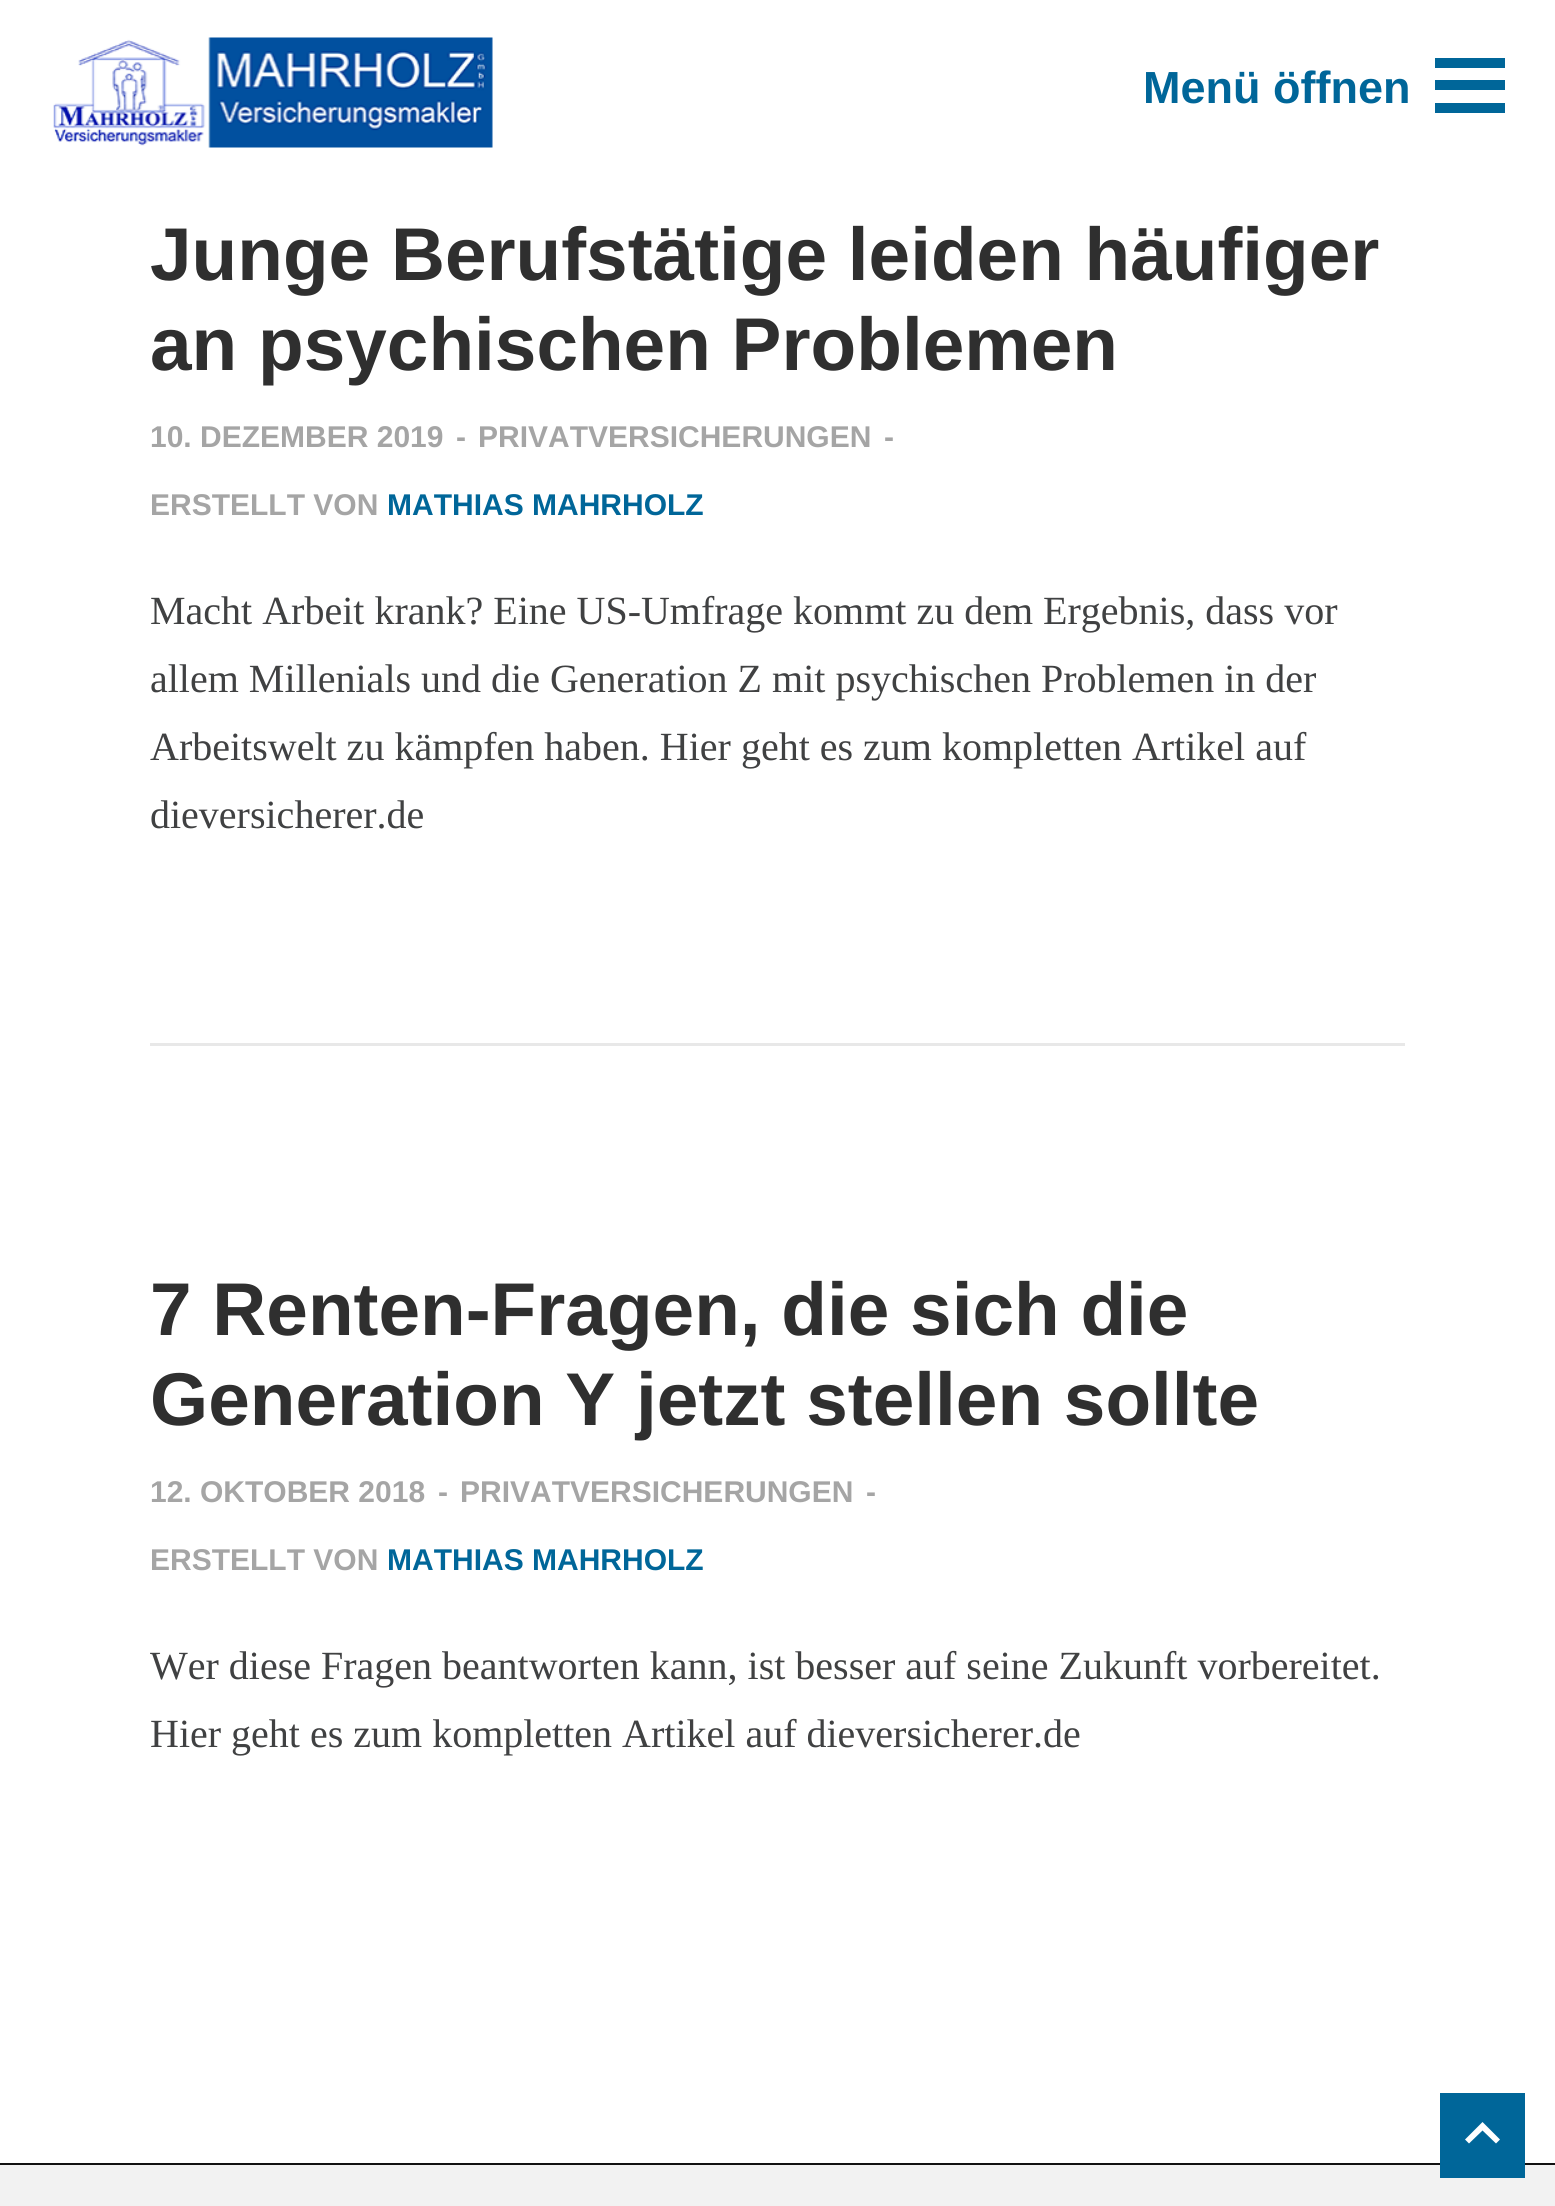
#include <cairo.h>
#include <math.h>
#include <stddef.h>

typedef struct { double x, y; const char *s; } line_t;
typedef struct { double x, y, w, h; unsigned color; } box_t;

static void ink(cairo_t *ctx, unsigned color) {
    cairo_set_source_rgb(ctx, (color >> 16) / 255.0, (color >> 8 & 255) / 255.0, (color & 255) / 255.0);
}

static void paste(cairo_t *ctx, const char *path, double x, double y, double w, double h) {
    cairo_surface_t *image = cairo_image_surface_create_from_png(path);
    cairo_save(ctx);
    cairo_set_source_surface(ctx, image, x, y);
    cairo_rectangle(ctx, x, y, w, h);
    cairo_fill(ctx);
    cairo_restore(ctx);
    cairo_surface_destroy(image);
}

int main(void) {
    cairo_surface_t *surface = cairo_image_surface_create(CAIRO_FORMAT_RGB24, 1555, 2206);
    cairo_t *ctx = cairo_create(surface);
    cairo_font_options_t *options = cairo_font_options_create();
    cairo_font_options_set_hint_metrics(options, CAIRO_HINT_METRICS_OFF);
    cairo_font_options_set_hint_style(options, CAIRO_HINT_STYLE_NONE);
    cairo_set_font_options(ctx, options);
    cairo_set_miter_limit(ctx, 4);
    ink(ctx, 0x111111);
    cairo_paint(ctx);
    ink(ctx, 0xFFFFFF);
    cairo_rectangle(ctx, 0, 0, 1555, 2163);
    cairo_fill(ctx);
    paste(ctx, "media/1.png", 53, 37, 440, 111);
    ink(ctx, 0x006699);
    cairo_rectangle(ctx, 1435, 58, 70, 10);
    cairo_fill(ctx);
    cairo_select_font_face(ctx, "Liberation Sans", CAIRO_FONT_SLANT_NORMAL, CAIRO_FONT_WEIGHT_BOLD);
    cairo_set_font_size(ctx, 45);
    cairo_move_to(ctx, 1143, 103);
    cairo_show_text(ctx, "Menü öffnen");
    {
        static const box_t items[] = {
            {1435, 80, 70, 10, 0x006699},
            {1435, 103, 70, 10, 0x006699},
            {150, 1043, 1255, 3, 0xE8E8E8},
        };
        for (size_t i = 0; i < sizeof items / sizeof *items; i++) {
            ink(ctx, items[i].color);
            cairo_rectangle(ctx, items[i].x, items[i].y, items[i].w, items[i].h);
            cairo_fill(ctx);
        }
    }
    cairo_set_font_size(ctx, 74.75);
    ink(ctx, 0x2F2F2F);
    cairo_move_to(ctx, 150, 280);
    cairo_show_text(ctx, "Junge Berufstätige leiden häufiger");
    cairo_move_to(ctx, 150, 370);
    cairo_show_text(ctx, "an psychischen Problemen");
    cairo_set_font_size(ctx, 30);
    ink(ctx, 0xA5A5A5);
    {
        static const line_t items[] = {
            {150, 447, "10. DEZEMBER 2019"},
            {456, 447, "-"},
            {478, 447, "PRIVATVERSICHERUNGEN"},
            {884, 447, "-"},
            {150, 515, "ERSTELLT VON"},
        };
        for (size_t i = 0; i < sizeof items / sizeof *items; i++) {
            cairo_move_to(ctx, items[i].x, items[i].y);
            cairo_show_text(ctx, items[i].s);
        }
    }
    ink(ctx, 0x006699);
    cairo_move_to(ctx, 387, 515);
    cairo_show_text(ctx, "MATHIAS MAHRHOLZ");
    cairo_select_font_face(ctx, "Liberation Serif", CAIRO_FONT_SLANT_NORMAL, CAIRO_FONT_WEIGHT_NORMAL);
    cairo_set_font_size(ctx, 40);
    ink(ctx, 0x404142);
    {
        static const line_t items[] = {
            {150, 624, "Macht Arbeit krank? Eine US-Umfrage kommt zu dem Ergebnis, dass vor"},
            {150, 692, "allem Millenials und die Generation Z mit psychischen Problemen in der"},
            {150, 760, "Arbeitswelt zu kämpfen haben. Hier geht es zum kompletten Artikel auf"},
            {150, 828, "dieversicherer.de"},
        };
        for (size_t i = 0; i < sizeof items / sizeof *items; i++) {
            cairo_move_to(ctx, items[i].x, items[i].y);
            cairo_show_text(ctx, items[i].s);
        }
    }
    cairo_select_font_face(ctx, "Liberation Sans", CAIRO_FONT_SLANT_NORMAL, CAIRO_FONT_WEIGHT_BOLD);
    cairo_set_font_size(ctx, 74.75);
    ink(ctx, 0x2F2F2F);
    cairo_move_to(ctx, 150, 1335);
    cairo_show_text(ctx, "7 Renten-Fragen, die sich die");
    cairo_move_to(ctx, 150, 1425);
    cairo_show_text(ctx, "Generation Y jetzt stellen sollte");
    cairo_set_font_size(ctx, 30);
    ink(ctx, 0xA5A5A5);
    {
        static const line_t items[] = {
            {150, 1502, "12. OKTOBER 2018"},
            {438, 1502, "-"},
            {460, 1502, "PRIVATVERSICHERUNGEN"},
            {866, 1502, "-"},
            {150, 1570, "ERSTELLT VON"},
        };
        for (size_t i = 0; i < sizeof items / sizeof *items; i++) {
            cairo_move_to(ctx, items[i].x, items[i].y);
            cairo_show_text(ctx, items[i].s);
        }
    }
    ink(ctx, 0x006699);
    cairo_move_to(ctx, 387, 1570);
    cairo_show_text(ctx, "MATHIAS MAHRHOLZ");
    cairo_select_font_face(ctx, "Liberation Serif", CAIRO_FONT_SLANT_NORMAL, CAIRO_FONT_WEIGHT_NORMAL);
    cairo_set_font_size(ctx, 40);
    ink(ctx, 0x404142);
    cairo_move_to(ctx, 150, 1679);
    cairo_show_text(ctx, "Wer diese Fragen beantworten kann, ist besser auf seine Zukunft vorbereitet.");
    cairo_move_to(ctx, 150, 1747);
    cairo_show_text(ctx, "Hier geht es zum kompletten Artikel auf dieversicherer.de");
    ink(ctx, 0xF2F2F2);
    cairo_rectangle(ctx, 0, 2165, 1555, 41);
    cairo_fill(ctx);
    ink(ctx, 0x006699);
    cairo_rectangle(ctx, 1440, 2093, 85, 85);
    cairo_fill(ctx);
    ink(ctx, 0xFFFFFF);
    cairo_new_path(ctx);
    cairo_move_to(ctx, 1469, 2143.5);
    cairo_line_to(ctx, 1482.5, 2130.5);
    cairo_line_to(ctx, 1496, 2143.5);
    cairo_line_to(ctx, 1500, 2139.5);
    cairo_line_to(ctx, 1482.5, 2122);
    cairo_line_to(ctx, 1465, 2139.5);
    cairo_close_path(ctx);
    cairo_fill(ctx);
    cairo_surface_write_to_png(surface, "image.png");
    cairo_font_options_destroy(options);
    cairo_destroy(ctx);
    cairo_surface_destroy(surface);
    return 0;
}
